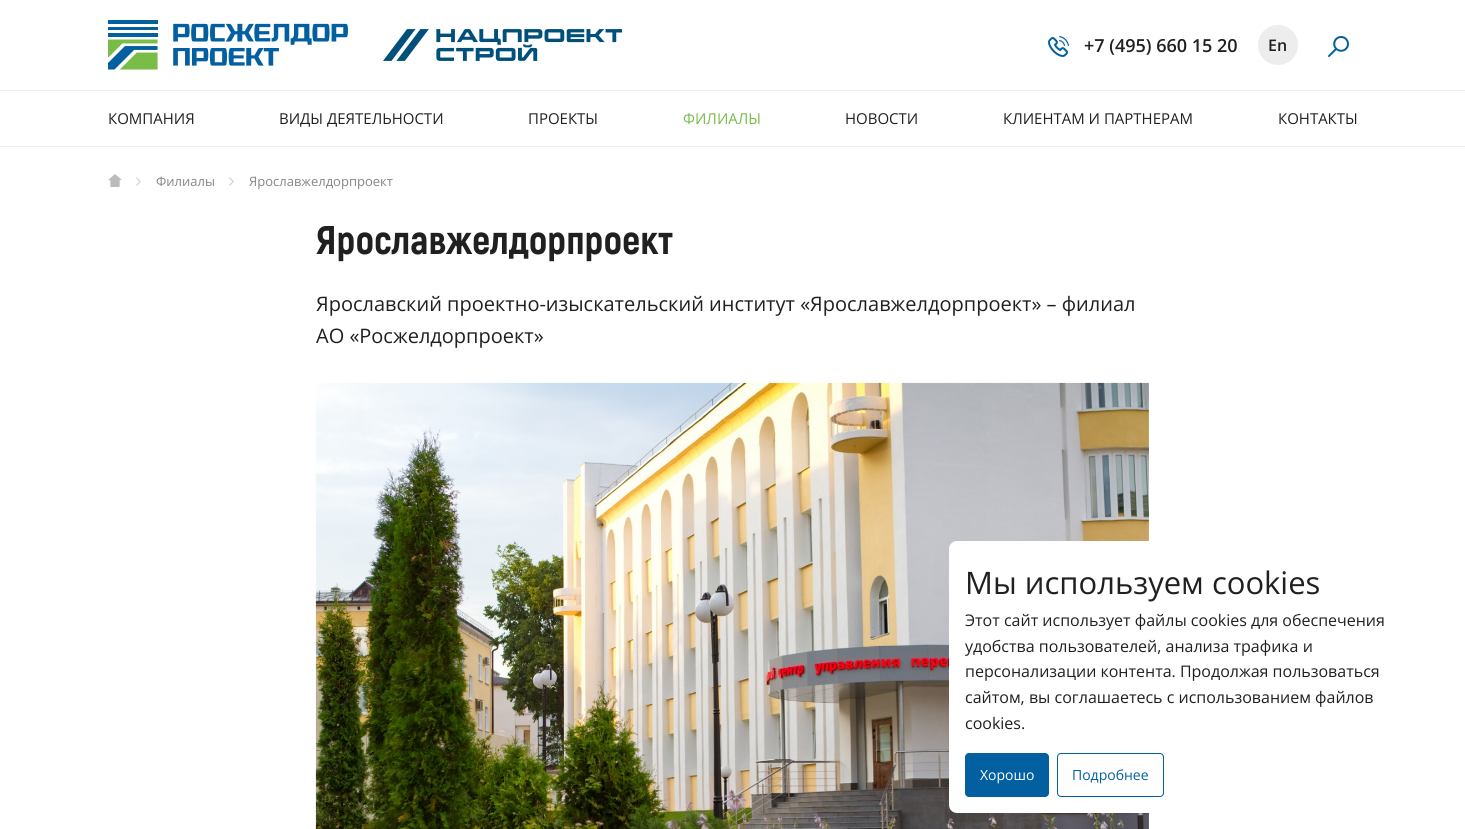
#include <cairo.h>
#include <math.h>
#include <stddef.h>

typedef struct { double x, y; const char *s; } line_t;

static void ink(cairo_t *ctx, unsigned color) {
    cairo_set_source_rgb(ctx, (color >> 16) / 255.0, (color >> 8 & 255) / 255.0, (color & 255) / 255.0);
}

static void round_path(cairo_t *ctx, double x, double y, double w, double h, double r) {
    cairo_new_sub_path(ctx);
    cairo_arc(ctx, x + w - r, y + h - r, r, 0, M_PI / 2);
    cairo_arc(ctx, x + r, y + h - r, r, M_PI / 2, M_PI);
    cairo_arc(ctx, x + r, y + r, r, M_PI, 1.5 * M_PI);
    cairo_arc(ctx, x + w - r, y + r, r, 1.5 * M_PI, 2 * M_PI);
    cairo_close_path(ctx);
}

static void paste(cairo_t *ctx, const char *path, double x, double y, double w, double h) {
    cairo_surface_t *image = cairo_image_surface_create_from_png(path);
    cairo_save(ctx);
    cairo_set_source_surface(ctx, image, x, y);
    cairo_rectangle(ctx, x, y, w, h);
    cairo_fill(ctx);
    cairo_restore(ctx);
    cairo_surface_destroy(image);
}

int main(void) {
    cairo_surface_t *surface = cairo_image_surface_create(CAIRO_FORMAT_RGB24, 1465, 829);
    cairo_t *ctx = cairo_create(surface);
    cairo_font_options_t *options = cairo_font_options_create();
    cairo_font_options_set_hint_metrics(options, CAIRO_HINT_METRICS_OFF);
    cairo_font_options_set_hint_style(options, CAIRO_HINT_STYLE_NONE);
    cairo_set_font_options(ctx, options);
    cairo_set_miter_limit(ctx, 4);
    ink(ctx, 0xFFFFFF);
    cairo_paint(ctx);
    paste(ctx, "media/1.png", 108, 20, 240, 50);
    paste(ctx, "media/2.png", 383, 29, 239, 32);
    paste(ctx, "media/3.png", 1048, 36, 21, 21);
    cairo_select_font_face(ctx, "Open Sans SemiBold", CAIRO_FONT_SLANT_NORMAL, CAIRO_FONT_WEIGHT_NORMAL);
    cairo_set_font_size(ctx, 18);
    ink(ctx, 0x202020);
    cairo_move_to(ctx, 1084, 52);
    cairo_show_text(ctx, "+7 (495) 660 15 20");
    ink(ctx, 0xEDEDED);
    cairo_new_path(ctx);
    cairo_arc(ctx, 1278, 45, 20, 0, 2 * M_PI);
    cairo_fill(ctx);
    cairo_set_font_size(ctx, 16);
    ink(ctx, 0x202020);
    cairo_move_to(ctx, 1268, 51);
    cairo_show_text(ctx, "En");
    paste(ctx, "media/4.png", 1328, 36, 21, 21);
    ink(ctx, 0xEDEDED);
    cairo_rectangle(ctx, 0, 90, 1465, 1);
    cairo_fill(ctx);
    cairo_rectangle(ctx, 0, 146, 1465, 1);
    cairo_fill(ctx);
    cairo_select_font_face(ctx, "Open Sans", CAIRO_FONT_SLANT_NORMAL, CAIRO_FONT_WEIGHT_NORMAL);
    cairo_set_font_size(ctx, 15);
    ink(ctx, 0x202020);
    {
        static const line_t items[] = {
            {108, 124, "КОМПАНИЯ"},
            {279, 124, "ВИДЫ ДЕЯТЕЛЬНОСТИ"},
            {528, 124, "ПРОЕКТЫ"},
        };
        for (size_t i = 0; i < sizeof items / sizeof *items; i++) {
            cairo_move_to(ctx, items[i].x, items[i].y);
            cairo_show_text(ctx, items[i].s);
        }
    }
    ink(ctx, 0x79BD48);
    cairo_move_to(ctx, 683, 124);
    cairo_show_text(ctx, "ФИЛИАЛЫ");
    ink(ctx, 0x202020);
    {
        static const line_t items[] = {
            {845, 124, "НОВОСТИ"},
            {1003, 124, "КЛИЕНТАМ И ПАРТНЕРАМ"},
            {1278, 124, "КОНТАКТЫ"},
        };
        for (size_t i = 0; i < sizeof items / sizeof *items; i++) {
            cairo_move_to(ctx, items[i].x, items[i].y);
            cairo_show_text(ctx, items[i].s);
        }
    }
    paste(ctx, "media/5.png", 108, 174, 14, 13);
    paste(ctx, "media/6.png", 136, 177, 5, 9);
    cairo_set_font_size(ctx, 13);
    ink(ctx, 0x868686);
    cairo_move_to(ctx, 156, 186);
    cairo_show_text(ctx, "Филиалы");
    paste(ctx, "media/6.png", 229, 177, 5, 9);
    cairo_move_to(ctx, 249, 186);
    cairo_show_text(ctx, "Ярославжелдорпроект");
    cairo_select_font_face(ctx, "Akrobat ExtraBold", CAIRO_FONT_SLANT_NORMAL, CAIRO_FONT_WEIGHT_NORMAL);
    cairo_set_font_size(ctx, 40);
    ink(ctx, 0x202020);
    cairo_move_to(ctx, 316, 254);
    cairo_show_text(ctx, "Ярославжелдорпроект");
    cairo_select_font_face(ctx, "Open Sans", CAIRO_FONT_SLANT_NORMAL, CAIRO_FONT_WEIGHT_NORMAL);
    cairo_set_font_size(ctx, 20);
    cairo_move_to(ctx, 316, 311);
    cairo_show_text(ctx, "Ярославский проектно-изыскательский институт «Ярославжелдорпроект» – филиал");
    cairo_move_to(ctx, 316, 343);
    cairo_show_text(ctx, "АО «Росжелдорпроект»");
    paste(ctx, "media/7.png", 315, 382, 834, 447);
    ink(ctx, 0xFFFFFF);
    round_path(ctx, 949, 541, 500, 272, 8);
    cairo_fill(ctx);
    cairo_set_font_size(ctx, 31);
    ink(ctx, 0x202020);
    cairo_move_to(ctx, 965, 594);
    cairo_show_text(ctx, "Мы используем cookies");
    cairo_set_font_size(ctx, 16);
    {
        static const line_t items[] = {
            {965, 626, "Этот сайт использует файлы cookies для обеспечения"},
            {965, 652, "удобства пользователей, анализа трафика и"},
            {965, 677, "персонализации контента. Продолжая пользоваться"},
            {965, 703, "сайтом, вы соглашаетесь с использованием файлов"},
            {965, 729, "cookies."},
        };
        for (size_t i = 0; i < sizeof items / sizeof *items; i++) {
            cairo_move_to(ctx, items[i].x, items[i].y);
            cairo_show_text(ctx, items[i].s);
        }
    }
    ink(ctx, 0x0260A0);
    round_path(ctx, 965, 753, 84, 44, 4);
    cairo_fill(ctx);
    cairo_set_font_size(ctx, 14);
    ink(ctx, 0xFEFEFE);
    cairo_move_to(ctx, 980, 780);
    cairo_show_text(ctx, "Хорошо");
    round_path(ctx, 1057.5, 753.5, 106, 43, 3.5);
    ink(ctx, 0x0260A0);
    cairo_set_line_width(ctx, 1);
    cairo_stroke(ctx);
    cairo_move_to(ctx, 1072, 780);
    cairo_show_text(ctx, "Подробнее");
    cairo_surface_write_to_png(surface, "image.png");
    cairo_font_options_destroy(options);
    cairo_destroy(ctx);
    cairo_surface_destroy(surface);
    return 0;
}
